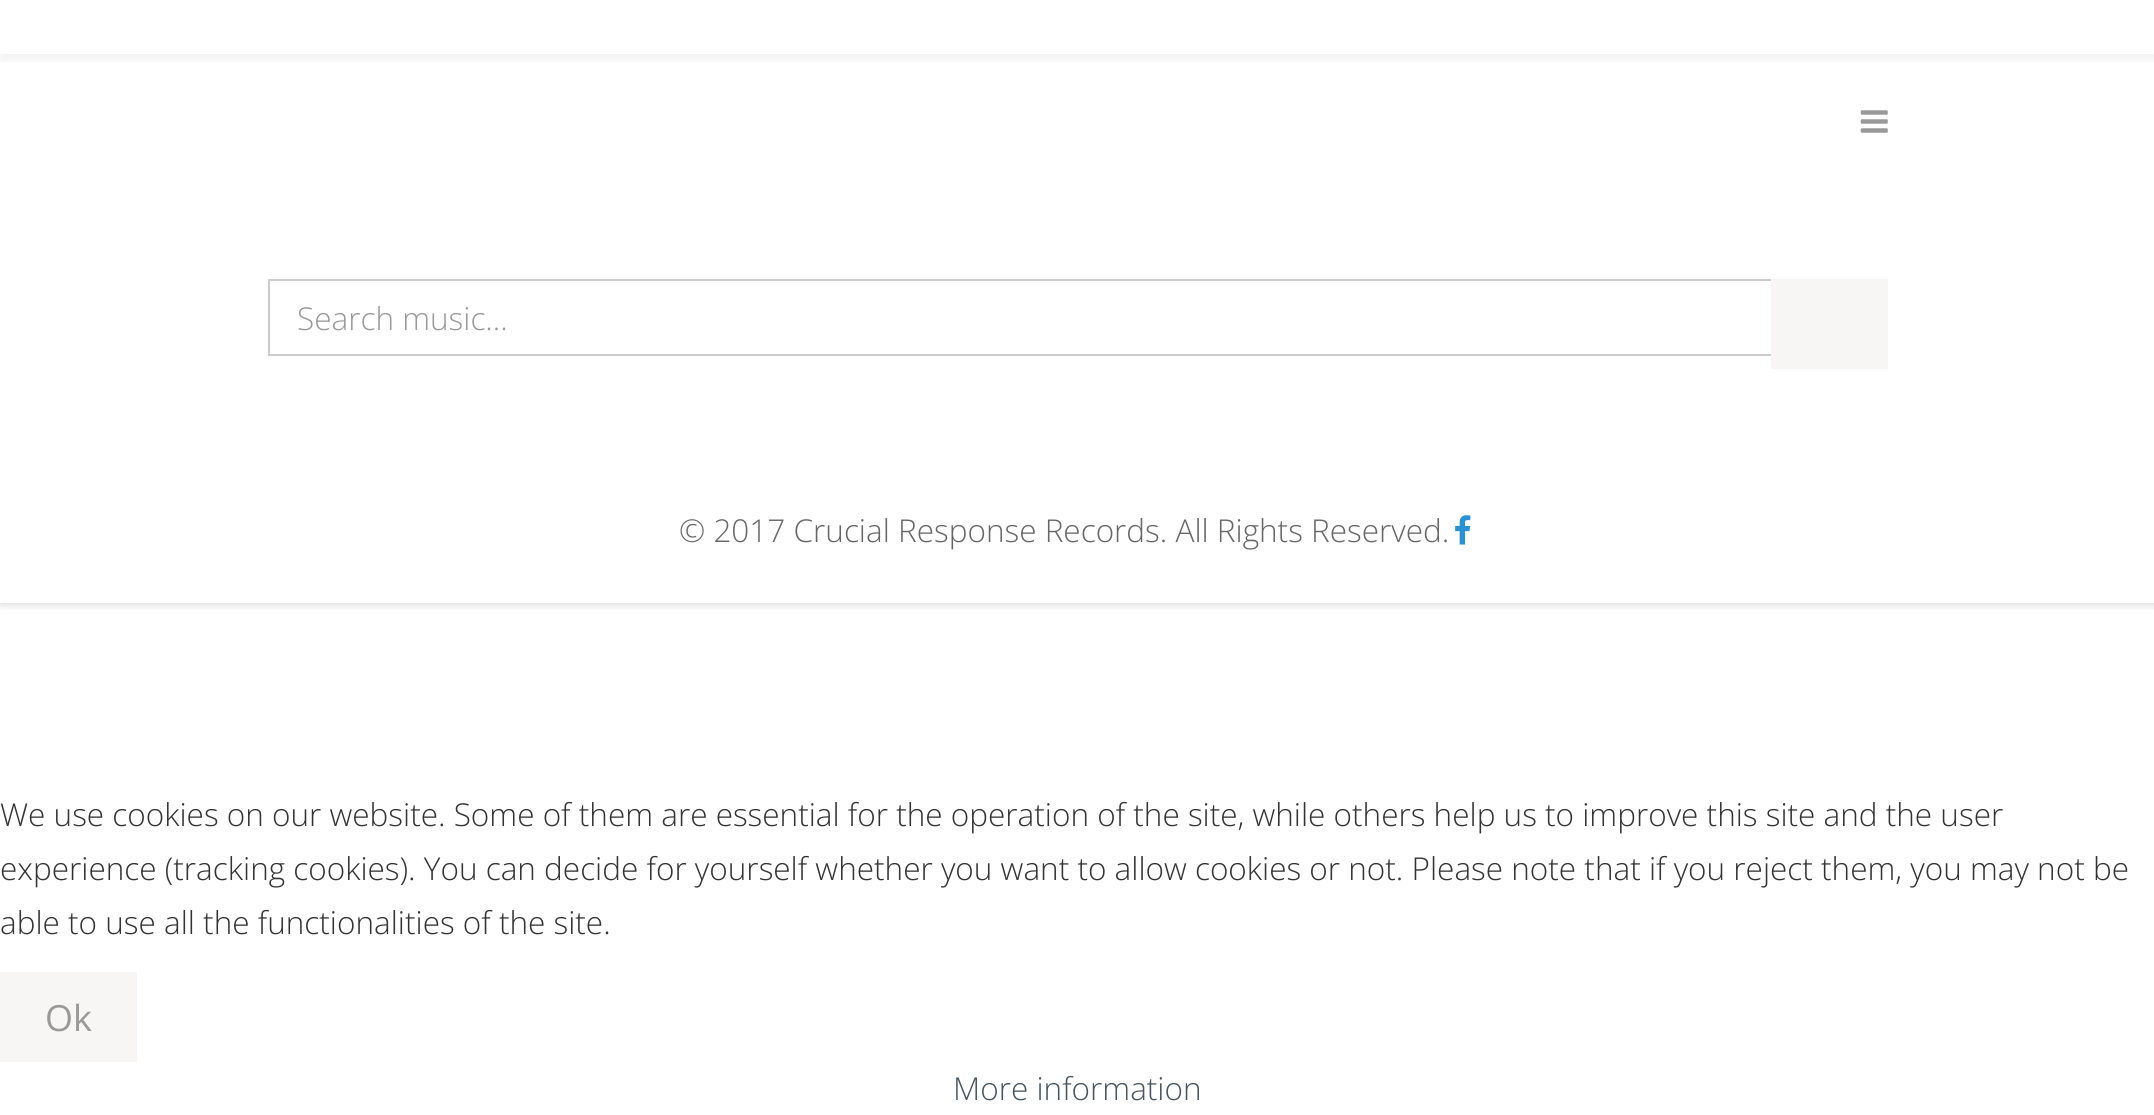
#include <cairo.h>
#include <math.h>
#include <stddef.h>

typedef struct { double x, y; const char *s; } line_t;

static void ink(cairo_t *ctx, unsigned color) {
    cairo_set_source_rgb(ctx, (color >> 16) / 255.0, (color >> 8 & 255) / 255.0, (color & 255) / 255.0);
}

static void round_path(cairo_t *ctx, double x, double y, double w, double h, double r) {
    cairo_new_sub_path(ctx);
    cairo_arc(ctx, x + w - r, y + h - r, r, 0, M_PI / 2);
    cairo_arc(ctx, x + r, y + h - r, r, M_PI / 2, M_PI);
    cairo_arc(ctx, x + r, y + r, r, M_PI, 1.5 * M_PI);
    cairo_arc(ctx, x + w - r, y + r, r, 1.5 * M_PI, 2 * M_PI);
    cairo_close_path(ctx);
}

static void blur_box(cairo_t *ctx, double x, double y, double w, double h, double r, double blur, double alpha) {
    cairo_push_group_with_content(ctx, CAIRO_CONTENT_ALPHA);
    cairo_set_operator(ctx, CAIRO_OPERATOR_SOURCE);
    for (int i = 15; i >= -15 && fmin(w, h) + blur * i / 3 > 0; i -= 2) {
        double e = blur * i / 6;
        cairo_set_source_rgba(ctx, 0, 0, 0, alpha * erfc((i - 1) / 8.5) / 2);
        round_path(ctx, x - e, y - e, w + 2 * e, h + 2 * e, fmax(0, fmin(r + e + blur * .6, fmin(w, h) / 2 + e)));
        cairo_fill(ctx);
    }
    cairo_pattern_t *soft = cairo_pop_group(ctx);
    cairo_mask(ctx, soft);
    cairo_pattern_destroy(soft);
}

static void paste(cairo_t *ctx, const char *path, double x, double y, double w, double h) {
    cairo_surface_t *image = cairo_image_surface_create_from_png(path);
    cairo_save(ctx);
    cairo_set_source_surface(ctx, image, x, y);
    cairo_rectangle(ctx, x, y, w, h);
    cairo_fill(ctx);
    cairo_restore(ctx);
    cairo_surface_destroy(image);
}

int main(void) {
    cairo_surface_t *surface = cairo_image_surface_create(CAIRO_FORMAT_RGB24, 2154, 1115);
    cairo_t *ctx = cairo_create(surface);
    cairo_font_options_t *options = cairo_font_options_create();
    cairo_font_options_set_hint_metrics(options, CAIRO_HINT_METRICS_OFF);
    cairo_font_options_set_hint_style(options, CAIRO_HINT_STYLE_NONE);
    cairo_set_font_options(ctx, options);
    cairo_set_miter_limit(ctx, 4);
    ink(ctx, 0xFFFFFF);
    cairo_paint(ctx);
    cairo_save(ctx);
    cairo_rectangle(ctx, 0, 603, 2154, 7);
    cairo_clip(ctx);
    ink(ctx, 0x000000);
    blur_box(ctx, 0, 0, 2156, 603, 0, 5.5, 0.2);
    cairo_restore(ctx);
    cairo_save(ctx);
    cairo_rectangle(ctx, 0, 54, 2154, 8);
    cairo_clip(ctx);
    ink(ctx, 0x000000);
    blur_box(ctx, 0, 7, 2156, 54, 0, 3.5, 0.05);
    cairo_restore(ctx);
    paste(ctx, "media/1.png", 1860, 110, 28, 23);
    cairo_rectangle(ctx, 269, 280, 1503, 75);
    ink(ctx, 0xCCCCCC);
    cairo_stroke(ctx);
    cairo_select_font_face(ctx, "Open Sans Light", CAIRO_FONT_SLANT_NORMAL, CAIRO_FONT_WEIGHT_NORMAL);
    cairo_set_font_size(ctx, 31.5);
    ink(ctx, 0x999999);
    cairo_move_to(ctx, 297, 330);
    cairo_show_text(ctx, "Search music...");
    ink(ctx, 0xF7F6F5);
    cairo_rectangle(ctx, 1771, 279, 117, 90);
    cairo_fill(ctx);
    ink(ctx, 0x666666);
    cairo_move_to(ctx, 679, 542);
    cairo_show_text(ctx, "© 2017 Crucial Response Records. All Rights Reserved.");
    paste(ctx, "media/2.png", 1455, 515, 16, 30);
    ink(ctx, 0x333333);
    {
        static const line_t items[] = {
            {0, 826, "We use cookies on our website. Some of them are essential for the operation of the site, while others help us to improve this site and the user"},
            {0, 880, "experience (tracking cookies). You can decide for yourself whether you want to allow cookies or not. Please note that if you reject them, you may not be"},
            {0, 934, "able to use all the functionalities of the site."},
        };
        for (size_t i = 0; i < sizeof items / sizeof *items; i++) {
            cairo_move_to(ctx, items[i].x, items[i].y);
            cairo_show_text(ctx, items[i].s);
        }
    }
    ink(ctx, 0xF7F6F5);
    cairo_rectangle(ctx, 0, 972, 137, 90);
    cairo_fill(ctx);
    cairo_select_font_face(ctx, "Open Sans", CAIRO_FONT_SLANT_NORMAL, CAIRO_FONT_WEIGHT_NORMAL);
    cairo_set_font_size(ctx, 36);
    ink(ctx, 0x999999);
    cairo_move_to(ctx, 45, 1031);
    cairo_show_text(ctx, "Ok");
    cairo_select_font_face(ctx, "Open Sans Light", CAIRO_FONT_SLANT_NORMAL, CAIRO_FONT_WEIGHT_NORMAL);
    cairo_set_font_size(ctx, 31.5);
    ink(ctx, 0x47555E);
    cairo_move_to(ctx, 953, 1100);
    cairo_show_text(ctx, "More information");
    cairo_surface_write_to_png(surface, "image.png");
    cairo_font_options_destroy(options);
    cairo_destroy(ctx);
    cairo_surface_destroy(surface);
    return 0;
}
